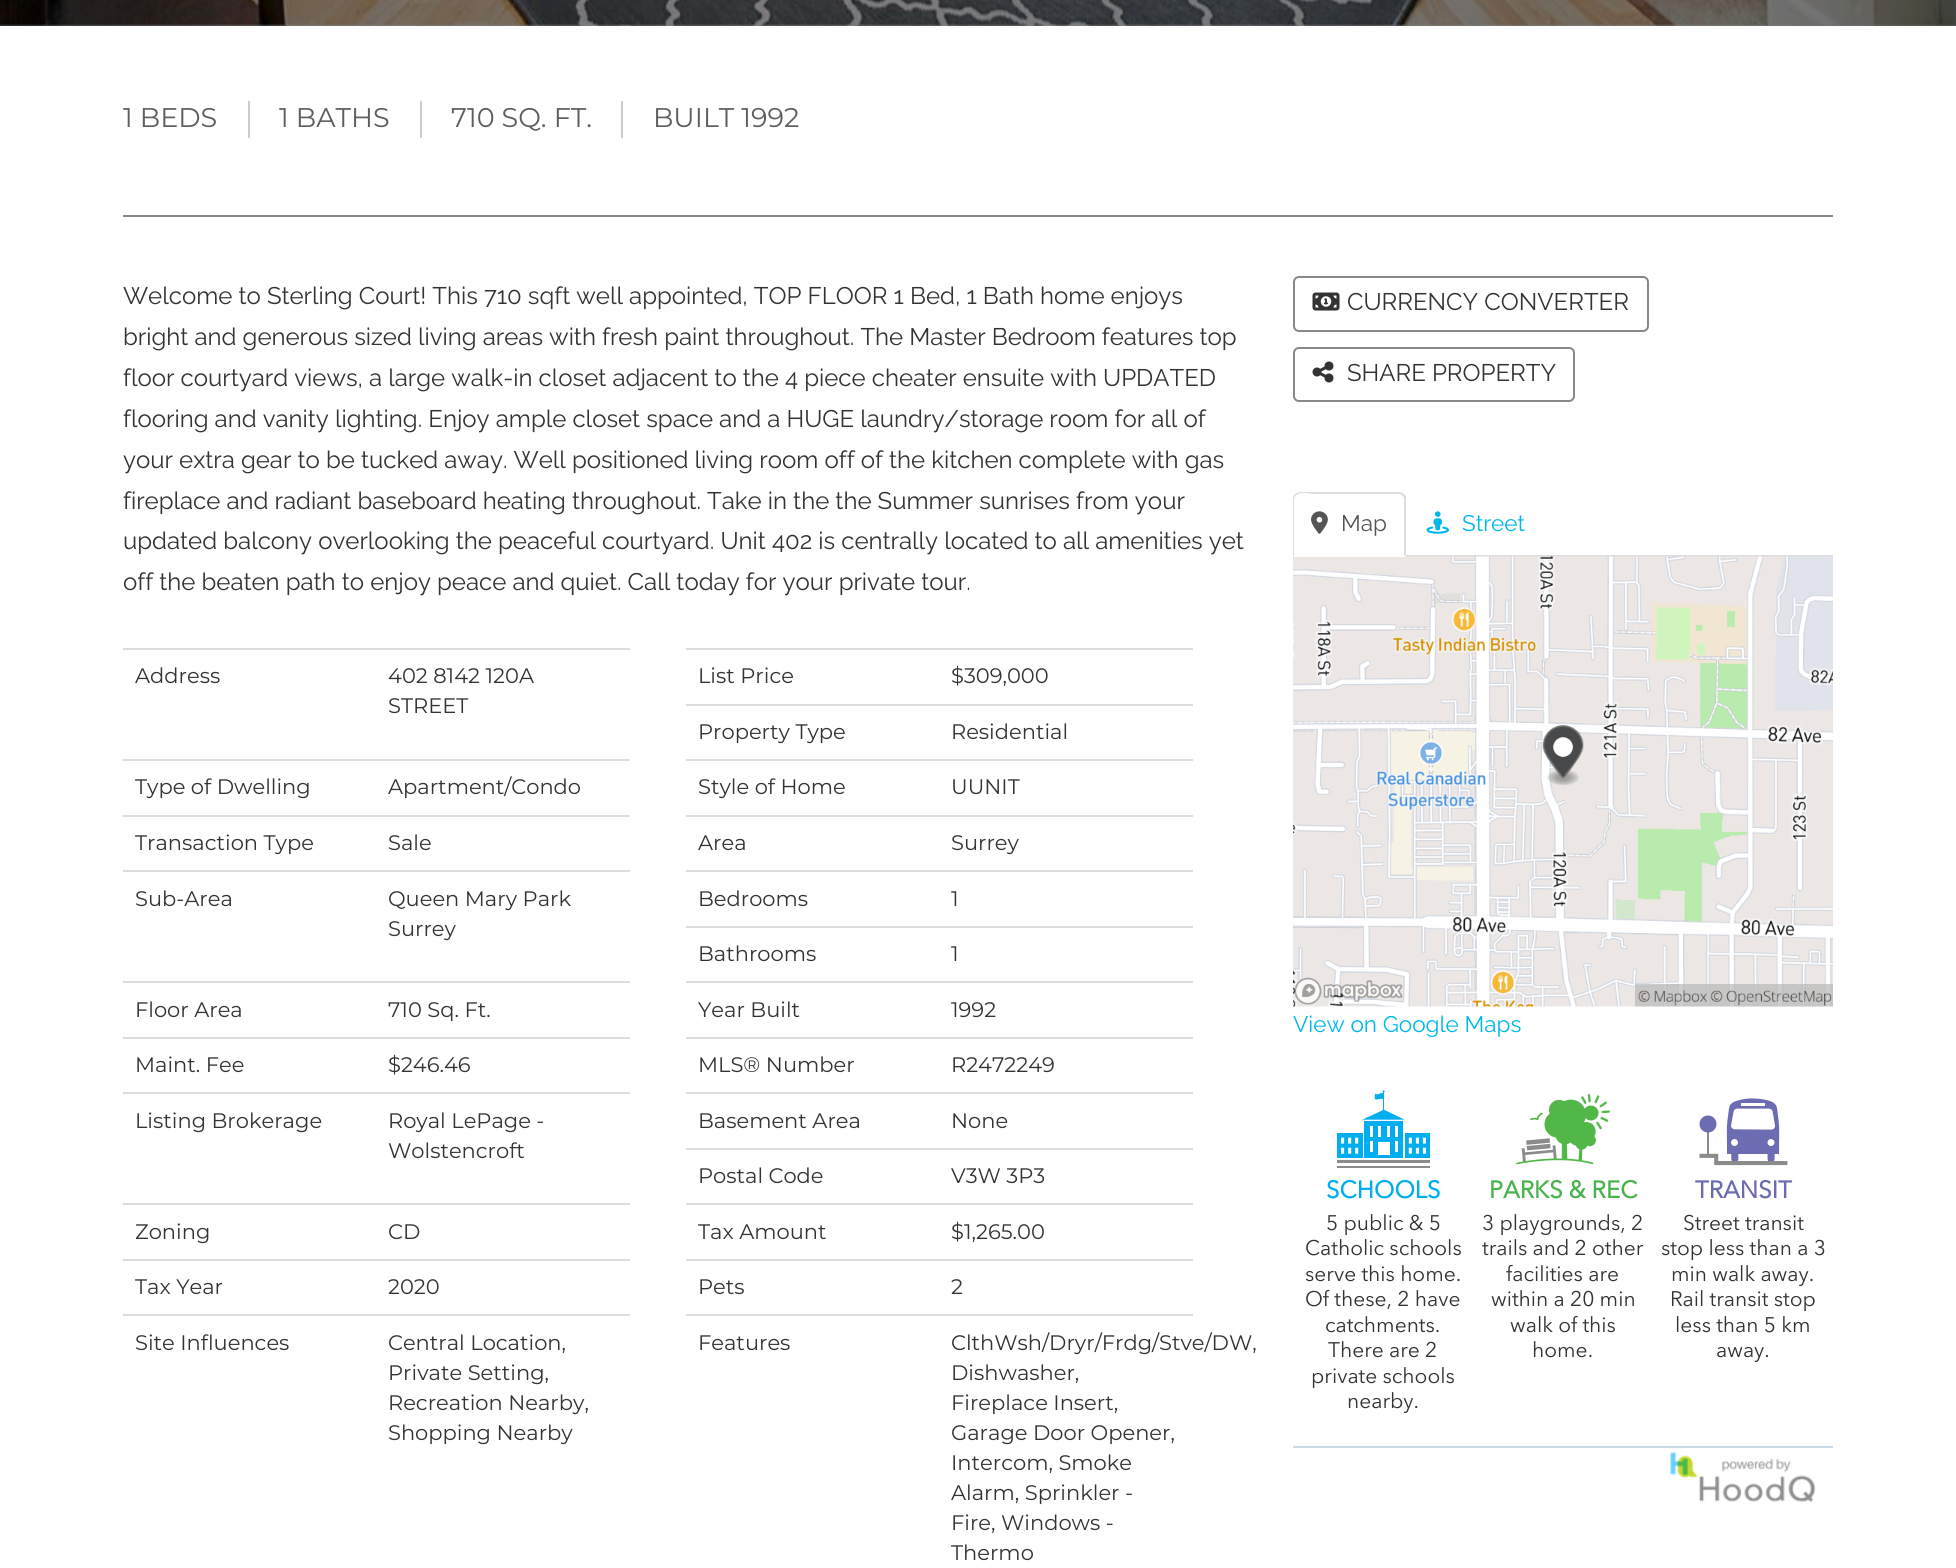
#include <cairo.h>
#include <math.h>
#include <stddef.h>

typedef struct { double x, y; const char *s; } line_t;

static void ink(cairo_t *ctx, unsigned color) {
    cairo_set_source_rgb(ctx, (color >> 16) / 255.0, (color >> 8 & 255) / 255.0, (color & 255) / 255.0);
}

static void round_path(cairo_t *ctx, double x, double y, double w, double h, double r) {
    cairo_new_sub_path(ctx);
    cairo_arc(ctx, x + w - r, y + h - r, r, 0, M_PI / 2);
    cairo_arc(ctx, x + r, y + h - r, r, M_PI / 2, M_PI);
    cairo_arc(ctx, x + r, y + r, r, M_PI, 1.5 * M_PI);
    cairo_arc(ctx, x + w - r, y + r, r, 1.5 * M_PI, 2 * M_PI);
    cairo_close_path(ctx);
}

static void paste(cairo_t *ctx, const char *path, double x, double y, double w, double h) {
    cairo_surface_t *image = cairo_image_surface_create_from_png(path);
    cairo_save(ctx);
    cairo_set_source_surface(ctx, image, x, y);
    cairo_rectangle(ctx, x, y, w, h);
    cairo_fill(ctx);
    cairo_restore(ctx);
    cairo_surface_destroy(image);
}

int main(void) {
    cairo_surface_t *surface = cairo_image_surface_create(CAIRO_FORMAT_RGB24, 1956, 1568);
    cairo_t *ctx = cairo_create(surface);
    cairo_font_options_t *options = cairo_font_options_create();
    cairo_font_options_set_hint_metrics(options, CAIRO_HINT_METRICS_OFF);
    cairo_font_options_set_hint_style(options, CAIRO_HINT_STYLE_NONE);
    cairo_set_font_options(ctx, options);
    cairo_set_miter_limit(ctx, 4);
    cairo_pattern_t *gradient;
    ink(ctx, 0xFFFFFF);
    cairo_paint(ctx);
    ink(ctx, 0xF5F5F5);
    cairo_rectangle(ctx, 0, 0, 1956, 26);
    cairo_fill(ctx);
    paste(ctx, "media/1.png", 0, 0, 1956, 26);
    gradient = cairo_pattern_create_linear(0, -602, 234, -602);
    cairo_pattern_add_color_stop_rgba(gradient, 0, 0, 0, 0, 0.25);
    cairo_pattern_add_color_stop_rgba(gradient, 1, 0, 0, 0, 0);
    cairo_set_source(ctx, gradient);
    cairo_pattern_destroy(gradient);
    cairo_rectangle(ctx, 0, 0, 214, 26);
    cairo_fill(ctx);
    gradient = cairo_pattern_create_linear(1722, -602, 1956, -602);
    cairo_pattern_add_color_stop_rgba(gradient, 0, 0, 0, 0, 0);
    cairo_pattern_add_color_stop_rgba(gradient, 1, 0, 0, 0, 0.25);
    cairo_set_source(ctx, gradient);
    cairo_pattern_destroy(gradient);
    cairo_rectangle(ctx, 1742, 0, 214, 26);
    cairo_fill(ctx);
    gradient = cairo_pattern_create_linear(978, -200, 978, 26);
    cairo_pattern_add_color_stop_rgba(gradient, 0, 0, 0, 0, 0);
    cairo_pattern_add_color_stop_rgba(gradient, 0.6, 0, 0, 0, 0.45);
    cairo_set_source(ctx, gradient);
    cairo_pattern_destroy(gradient);
    cairo_rectangle(ctx, 0, 0, 1956, 26);
    cairo_fill(ctx);
    ink(ctx, 0x888888);
    cairo_rectangle(ctx, 123, 215, 1710, 2);
    cairo_fill(ctx);
    ink(ctx, 0xCCCCCC);
    cairo_rectangle(ctx, 248, 101, 2, 37);
    cairo_fill(ctx);
    cairo_select_font_face(ctx, "Montserrat", CAIRO_FONT_SLANT_NORMAL, CAIRO_FONT_WEIGHT_NORMAL);
    cairo_set_font_size(ctx, 27);
    ink(ctx, 0x5E5E5E);
    cairo_move_to(ctx, 123, 127);
    cairo_show_text(ctx, "1 BEDS");
    ink(ctx, 0xCCCCCC);
    cairo_rectangle(ctx, 420, 101, 2, 37);
    cairo_fill(ctx);
    ink(ctx, 0x5E5E5E);
    cairo_move_to(ctx, 279, 127);
    cairo_show_text(ctx, "1 BATHS");
    ink(ctx, 0xCCCCCC);
    cairo_rectangle(ctx, 621, 101, 2, 37);
    cairo_fill(ctx);
    ink(ctx, 0x5E5E5E);
    cairo_move_to(ctx, 451, 127);
    cairo_show_text(ctx, "710 SQ. FT.");
    cairo_move_to(ctx, 653, 127);
    cairo_show_text(ctx, "BUILT 1992");
    cairo_select_font_face(ctx, "Raleway", CAIRO_FONT_SLANT_NORMAL, CAIRO_FONT_WEIGHT_NORMAL);
    cairo_set_font_size(ctx, 24);
    ink(ctx, 0x333333);
    {
        static const line_t items[] = {
            {123, 304, "Welcome to Sterling Court! This 710 sqft well appointed, TOP FLOOR 1 Bed, 1 Bath home enjoys"},
            {123, 345, "bright and generous sized living areas with fresh paint throughout. The Master Bedroom features top"},
            {123, 386, "floor courtyard views, a large walk-in closet adjacent to the 4 piece cheater ensuite with UPDATED"},
            {123, 427, "flooring and vanity lighting. Enjoy ample closet space and a HUGE laundry/storage room for all of"},
            {123, 468, "your extra gear to be tucked away. Well positioned living room off of the kitchen complete with gas"},
            {123, 509, "fireplace and radiant baseboard heating throughout. Take in the the Summer sunrises from your"},
            {123, 549, "updated balcony overlooking the peaceful courtyard. Unit 402 is centrally located to all amenities yet"},
            {123, 590, "off the beaten path to enjoy peace and quiet. Call today for your private tour."},
        };
        for (size_t i = 0; i < sizeof items / sizeof *items; i++) {
            cairo_move_to(ctx, items[i].x, items[i].y);
            cairo_show_text(ctx, items[i].s);
        }
    }
    ink(ctx, 0xDDDDDD);
    cairo_rectangle(ctx, 123, 648, 507, 2);
    cairo_fill(ctx);
    cairo_select_font_face(ctx, "Montserrat", CAIRO_FONT_SLANT_NORMAL, CAIRO_FONT_WEIGHT_NORMAL);
    cairo_set_font_size(ctx, 21);
    ink(ctx, 0x333333);
    {
        static const line_t items[] = {
            {135, 683, "Address"},
            {388, 683, "402 8142 120A"},
            {388, 713, "STREET"},
        };
        for (size_t i = 0; i < sizeof items / sizeof *items; i++) {
            cairo_move_to(ctx, items[i].x, items[i].y);
            cairo_show_text(ctx, items[i].s);
        }
    }
    ink(ctx, 0xDDDDDD);
    cairo_rectangle(ctx, 686, 648, 507, 2);
    cairo_fill(ctx);
    ink(ctx, 0x333333);
    cairo_move_to(ctx, 698, 683);
    cairo_show_text(ctx, "List Price");
    cairo_move_to(ctx, 951, 683);
    cairo_show_text(ctx, "$309,000");
    ink(ctx, 0xDDDDDD);
    cairo_rectangle(ctx, 686, 704, 507, 2);
    cairo_fill(ctx);
    ink(ctx, 0x333333);
    cairo_move_to(ctx, 698, 739);
    cairo_show_text(ctx, "Property Type");
    cairo_move_to(ctx, 951, 739);
    cairo_show_text(ctx, "Residential");
    ink(ctx, 0xDDDDDD);
    cairo_rectangle(ctx, 123, 759, 507, 2);
    cairo_fill(ctx);
    ink(ctx, 0x333333);
    cairo_move_to(ctx, 135, 794);
    cairo_show_text(ctx, "Type of Dwelling");
    cairo_move_to(ctx, 388, 794);
    cairo_show_text(ctx, "Apartment/Condo");
    ink(ctx, 0xDDDDDD);
    cairo_rectangle(ctx, 686, 759, 507, 2);
    cairo_fill(ctx);
    ink(ctx, 0x333333);
    cairo_move_to(ctx, 698, 794);
    cairo_show_text(ctx, "Style of Home");
    cairo_move_to(ctx, 951, 794);
    cairo_show_text(ctx, "UUNIT");
    ink(ctx, 0xDDDDDD);
    cairo_rectangle(ctx, 123, 815, 507, 2);
    cairo_fill(ctx);
    ink(ctx, 0x333333);
    cairo_move_to(ctx, 135, 850);
    cairo_show_text(ctx, "Transaction Type");
    cairo_move_to(ctx, 388, 850);
    cairo_show_text(ctx, "Sale");
    ink(ctx, 0xDDDDDD);
    cairo_rectangle(ctx, 686, 815, 507, 2);
    cairo_fill(ctx);
    ink(ctx, 0x333333);
    cairo_move_to(ctx, 698, 850);
    cairo_show_text(ctx, "Area");
    cairo_move_to(ctx, 951, 850);
    cairo_show_text(ctx, "Surrey");
    ink(ctx, 0xDDDDDD);
    cairo_rectangle(ctx, 123, 870, 507, 2);
    cairo_fill(ctx);
    ink(ctx, 0x333333);
    {
        static const line_t items[] = {
            {135, 906, "Sub-Area"},
            {388, 906, "Queen Mary Park"},
            {388, 936, "Surrey"},
        };
        for (size_t i = 0; i < sizeof items / sizeof *items; i++) {
            cairo_move_to(ctx, items[i].x, items[i].y);
            cairo_show_text(ctx, items[i].s);
        }
    }
    ink(ctx, 0xDDDDDD);
    cairo_rectangle(ctx, 686, 870, 507, 2);
    cairo_fill(ctx);
    ink(ctx, 0x333333);
    cairo_move_to(ctx, 698, 906);
    cairo_show_text(ctx, "Bedrooms");
    cairo_move_to(ctx, 951, 906);
    cairo_show_text(ctx, "1");
    ink(ctx, 0xDDDDDD);
    cairo_rectangle(ctx, 686, 926, 507, 2);
    cairo_fill(ctx);
    ink(ctx, 0x333333);
    cairo_move_to(ctx, 698, 961);
    cairo_show_text(ctx, "Bathrooms");
    cairo_move_to(ctx, 951, 961);
    cairo_show_text(ctx, "1");
    ink(ctx, 0xDDDDDD);
    cairo_rectangle(ctx, 123, 981, 507, 2);
    cairo_fill(ctx);
    ink(ctx, 0x333333);
    cairo_move_to(ctx, 135, 1017);
    cairo_show_text(ctx, "Floor Area");
    cairo_move_to(ctx, 388, 1017);
    cairo_show_text(ctx, "710 Sq. Ft.");
    ink(ctx, 0xDDDDDD);
    cairo_rectangle(ctx, 686, 981, 507, 2);
    cairo_fill(ctx);
    ink(ctx, 0x333333);
    cairo_move_to(ctx, 698, 1017);
    cairo_show_text(ctx, "Year Built");
    cairo_move_to(ctx, 951, 1017);
    cairo_show_text(ctx, "1992");
    ink(ctx, 0xDDDDDD);
    cairo_rectangle(ctx, 123, 1037, 507, 2);
    cairo_fill(ctx);
    ink(ctx, 0x333333);
    cairo_move_to(ctx, 135, 1072);
    cairo_show_text(ctx, "Maint. Fee");
    cairo_move_to(ctx, 388, 1072);
    cairo_show_text(ctx, "$246.46");
    ink(ctx, 0xDDDDDD);
    cairo_rectangle(ctx, 686, 1037, 507, 2);
    cairo_fill(ctx);
    ink(ctx, 0x333333);
    cairo_move_to(ctx, 698, 1072);
    cairo_show_text(ctx, "MLS® Number");
    cairo_move_to(ctx, 951, 1072);
    cairo_show_text(ctx, "R2472249");
    ink(ctx, 0xDDDDDD);
    cairo_rectangle(ctx, 123, 1092, 507, 2);
    cairo_fill(ctx);
    ink(ctx, 0x333333);
    {
        static const line_t items[] = {
            {135, 1128, "Listing Brokerage"},
            {388, 1128, "Royal LePage -"},
            {388, 1158, "Wolstencroft"},
        };
        for (size_t i = 0; i < sizeof items / sizeof *items; i++) {
            cairo_move_to(ctx, items[i].x, items[i].y);
            cairo_show_text(ctx, items[i].s);
        }
    }
    ink(ctx, 0xDDDDDD);
    cairo_rectangle(ctx, 686, 1092, 507, 2);
    cairo_fill(ctx);
    ink(ctx, 0x333333);
    cairo_move_to(ctx, 698, 1128);
    cairo_show_text(ctx, "Basement Area");
    cairo_move_to(ctx, 951, 1128);
    cairo_show_text(ctx, "None");
    ink(ctx, 0xDDDDDD);
    cairo_rectangle(ctx, 686, 1148, 507, 2);
    cairo_fill(ctx);
    ink(ctx, 0x333333);
    cairo_move_to(ctx, 698, 1183);
    cairo_show_text(ctx, "Postal Code");
    cairo_move_to(ctx, 951, 1183);
    cairo_show_text(ctx, "V3W 3P3");
    ink(ctx, 0xDDDDDD);
    cairo_rectangle(ctx, 123, 1203, 507, 2);
    cairo_fill(ctx);
    ink(ctx, 0x333333);
    cairo_move_to(ctx, 135, 1239);
    cairo_show_text(ctx, "Zoning");
    cairo_move_to(ctx, 388, 1239);
    cairo_show_text(ctx, "CD");
    ink(ctx, 0xDDDDDD);
    cairo_rectangle(ctx, 686, 1203, 507, 2);
    cairo_fill(ctx);
    ink(ctx, 0x333333);
    cairo_move_to(ctx, 698, 1239);
    cairo_show_text(ctx, "Tax Amount");
    cairo_move_to(ctx, 951, 1239);
    cairo_show_text(ctx, "$1,265.00");
    ink(ctx, 0xDDDDDD);
    cairo_rectangle(ctx, 123, 1259, 507, 2);
    cairo_fill(ctx);
    ink(ctx, 0x333333);
    cairo_move_to(ctx, 135, 1294);
    cairo_show_text(ctx, "Tax Year");
    cairo_move_to(ctx, 388, 1294);
    cairo_show_text(ctx, "2020");
    ink(ctx, 0xDDDDDD);
    cairo_rectangle(ctx, 686, 1259, 507, 2);
    cairo_fill(ctx);
    ink(ctx, 0x333333);
    cairo_move_to(ctx, 698, 1294);
    cairo_show_text(ctx, "Pets");
    cairo_move_to(ctx, 951, 1294);
    cairo_show_text(ctx, "2");
    ink(ctx, 0xDDDDDD);
    cairo_rectangle(ctx, 123, 1314, 507, 2);
    cairo_fill(ctx);
    ink(ctx, 0x333333);
    {
        static const line_t items[] = {
            {135, 1350, "Site Influences"},
            {388, 1350, "Central Location,"},
            {388, 1380, "Private Setting,"},
            {388, 1410, "Recreation Nearby,"},
            {388, 1440, "Shopping Nearby"},
        };
        for (size_t i = 0; i < sizeof items / sizeof *items; i++) {
            cairo_move_to(ctx, items[i].x, items[i].y);
            cairo_show_text(ctx, items[i].s);
        }
    }
    ink(ctx, 0xDDDDDD);
    cairo_rectangle(ctx, 686, 1314, 507, 2);
    cairo_fill(ctx);
    ink(ctx, 0x333333);
    {
        static const line_t items[] = {
            {698, 1350, "Features"},
            {951, 1350, "ClthWsh/Dryr/Frdg/Stve/DW,"},
            {951, 1380, "Dishwasher,"},
            {951, 1410, "Fireplace Insert,"},
            {951, 1440, "Garage Door Opener,"},
            {951, 1470, "Intercom, Smoke"},
            {951, 1500, "Alarm, Sprinkler -"},
            {951, 1530, "Fire, Windows -"},
            {951, 1560, "Thermo"},
        };
        for (size_t i = 0; i < sizeof items / sizeof *items; i++) {
            cairo_move_to(ctx, items[i].x, items[i].y);
            cairo_show_text(ctx, items[i].s);
        }
    }
    round_path(ctx, 1294, 277, 354, 54, 5);
    ink(ctx, 0x888888);
    cairo_stroke(ctx);
    paste(ctx, "media/2.png", 1312, 292, 28, 19);
    cairo_select_font_face(ctx, "Raleway", CAIRO_FONT_SLANT_NORMAL, CAIRO_FONT_WEIGHT_NORMAL);
    cairo_set_font_size(ctx, 24);
    ink(ctx, 0x333333);
    cairo_move_to(ctx, 1347, 310);
    cairo_show_text(ctx, "CURRENCY CONVERTER");
    round_path(ctx, 1294, 348, 280, 53, 5);
    ink(ctx, 0x888888);
    cairo_stroke(ctx);
    paste(ctx, "media/3.png", 1312, 361, 22, 22);
    ink(ctx, 0x333333);
    cairo_move_to(ctx, 1347, 381);
    cairo_show_text(ctx, "SHARE PROPERTY");
    ink(ctx, 0xDDDDDD);
    cairo_rectangle(ctx, 1406, 555, 427, 2);
    cairo_fill(ctx);
    paste(ctx, "media/6.png", 1293, 556, 540, 451);
    ink(ctx, 0xFFFFFF);
    cairo_new_path(ctx);
    cairo_move_to(ctx, 1299, 492);
    cairo_line_to(ctx, 1400, 492);
    cairo_curve_to(ctx, 1403.5, 492, 1406, 494.5, 1406, 498);
    cairo_line_to(ctx, 1406, 557);
    cairo_line_to(ctx, 1293, 557);
    cairo_line_to(ctx, 1293, 498);
    cairo_curve_to(ctx, 1293, 494.5, 1295.5, 492, 1299, 492);
    cairo_close_path(ctx);
    cairo_fill(ctx);
    ink(ctx, 0xDDDDDD);
    cairo_new_path(ctx);
    cairo_move_to(ctx, 1299, 492);
    cairo_curve_to(ctx, 1298, 492, 1296, 493, 1295, 494);
    cairo_line_to(ctx, 1296, 495);
    cairo_curve_to(ctx, 1302, 491, 1309, 494, 1316, 494);
    cairo_line_to(ctx, 1400, 494);
    cairo_line_to(ctx, 1402, 495);
    cairo_line_to(ctx, 1404, 494);
    cairo_curve_to(ctx, 1403, 493, 1401, 492, 1400, 492);
    cairo_close_path(ctx);
    cairo_fill(ctx);
    cairo_new_path(ctx);
    cairo_move_to(ctx, 1406, 556);
    cairo_line_to(ctx, 1404, 555);
    cairo_line_to(ctx, 1404, 498);
    cairo_line_to(ctx, 1402, 495);
    cairo_line_to(ctx, 1404, 494);
    cairo_line_to(ctx, 1406, 496);
    cairo_close_path(ctx);
    cairo_fill(ctx);
    cairo_new_path(ctx);
    cairo_move_to(ctx, 1293, 498);
    cairo_line_to(ctx, 1293, 556);
    cairo_line_to(ctx, 1294, 556);
    cairo_line_to(ctx, 1294, 555);
    cairo_line_to(ctx, 1294, 498);
    cairo_line_to(ctx, 1296, 495);
    cairo_line_to(ctx, 1295, 494);
    cairo_curve_to(ctx, 1294, 495, 1293, 496, 1293, 498);
    cairo_close_path(ctx);
    cairo_fill(ctx);
    paste(ctx, "media/4.png", 1311, 511, 17, 23);
    cairo_set_font_size(ctx, 22.5);
    ink(ctx, 0x555555);
    cairo_move_to(ctx, 1341, 531);
    cairo_show_text(ctx, "Map");
    paste(ctx, "media/5.png", 1426, 511, 23, 23);
    ink(ctx, 0x00B7EC);
    cairo_move_to(ctx, 1462, 531);
    cairo_show_text(ctx, "Street");
    cairo_move_to(ctx, 1293, 1032);
    cairo_show_text(ctx, "View on Google Maps");
    paste(ctx, "media/7.png", 1337, 1090, 93, 78);
    cairo_select_font_face(ctx, "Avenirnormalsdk", CAIRO_FONT_SLANT_NORMAL, CAIRO_FONT_WEIGHT_BOLD);
    cairo_set_font_size(ctx, 24);
    ink(ctx, 0x00AEEF);
    cairo_move_to(ctx, 1326, 1198);
    cairo_show_text(ctx, "SCHOOLS");
    cairo_select_font_face(ctx, "Avenirnormalsdk", CAIRO_FONT_SLANT_NORMAL, CAIRO_FONT_WEIGHT_NORMAL);
    cairo_set_font_size(ctx, 21);
    ink(ctx, 0x333333);
    {
        static const line_t items[] = {
            {1326, 1230, "5 public & 5"},
            {1305, 1255, "Catholic schools"},
            {1305, 1281, "serve this home."},
            {1305, 1306, "Of these, 2 have"},
            {1325, 1332, "catchments."},
            {1328, 1357, "There are 2"},
            {1311, 1383, "private schools"},
            {1347, 1408, "nearby."},
        };
        for (size_t i = 0; i < sizeof items / sizeof *items; i++) {
            cairo_move_to(ctx, items[i].x, items[i].y);
            cairo_show_text(ctx, items[i].s);
        }
    }
    paste(ctx, "media/8.png", 1516, 1094, 94, 71);
    cairo_select_font_face(ctx, "Avenirnormalsdk", CAIRO_FONT_SLANT_NORMAL, CAIRO_FONT_WEIGHT_BOLD);
    cairo_set_font_size(ctx, 24);
    ink(ctx, 0x48B24C);
    cairo_move_to(ctx, 1489, 1198);
    cairo_show_text(ctx, "PARKS & REC");
    cairo_select_font_face(ctx, "Avenirnormalsdk", CAIRO_FONT_SLANT_NORMAL, CAIRO_FONT_WEIGHT_NORMAL);
    cairo_set_font_size(ctx, 21);
    ink(ctx, 0x333333);
    {
        static const line_t items[] = {
            {1482, 1230, "3 playgrounds, 2"},
            {1482, 1255, "trails and 2 other"},
            {1506, 1281, "facilities are"},
            {1491, 1306, "within a 20 min"},
            {1510, 1332, "walk of this"},
            {1532, 1357, "home."},
        };
        for (size_t i = 0; i < sizeof items / sizeof *items; i++) {
            cairo_move_to(ctx, items[i].x, items[i].y);
            cairo_show_text(ctx, items[i].s);
        }
    }
    paste(ctx, "media/9.png", 1699, 1098, 89, 68);
    cairo_select_font_face(ctx, "Avenirnormalsdk", CAIRO_FONT_SLANT_NORMAL, CAIRO_FONT_WEIGHT_BOLD);
    cairo_set_font_size(ctx, 24);
    ink(ctx, 0x6A6BB1);
    cairo_move_to(ctx, 1695, 1198);
    cairo_show_text(ctx, "TRANSIT");
    cairo_select_font_face(ctx, "Avenirnormalsdk", CAIRO_FONT_SLANT_NORMAL, CAIRO_FONT_WEIGHT_NORMAL);
    cairo_set_font_size(ctx, 21);
    ink(ctx, 0x333333);
    {
        static const line_t items[] = {
            {1683, 1230, "Street transit"},
            {1661, 1255, "stop less than a 3"},
            {1671, 1281, "min walk away."},
            {1670, 1306, "Rail transit stop"},
            {1675, 1332, "less than 5 km"},
            {1716, 1357, "away."},
        };
        for (size_t i = 0; i < sizeof items / sizeof *items; i++) {
            cairo_move_to(ctx, items[i].x, items[i].y);
            cairo_show_text(ctx, items[i].s);
        }
    }
    ink(ctx, 0xCBDBE5);
    cairo_rectangle(ctx, 1293, 1446, 540, 2);
    cairo_fill(ctx);
    paste(ctx, "media/10.png", 1670, 1452, 146, 51);
    cairo_surface_write_to_png(surface, "image.png");
    cairo_font_options_destroy(options);
    cairo_destroy(ctx);
    cairo_surface_destroy(surface);
    return 0;
}
